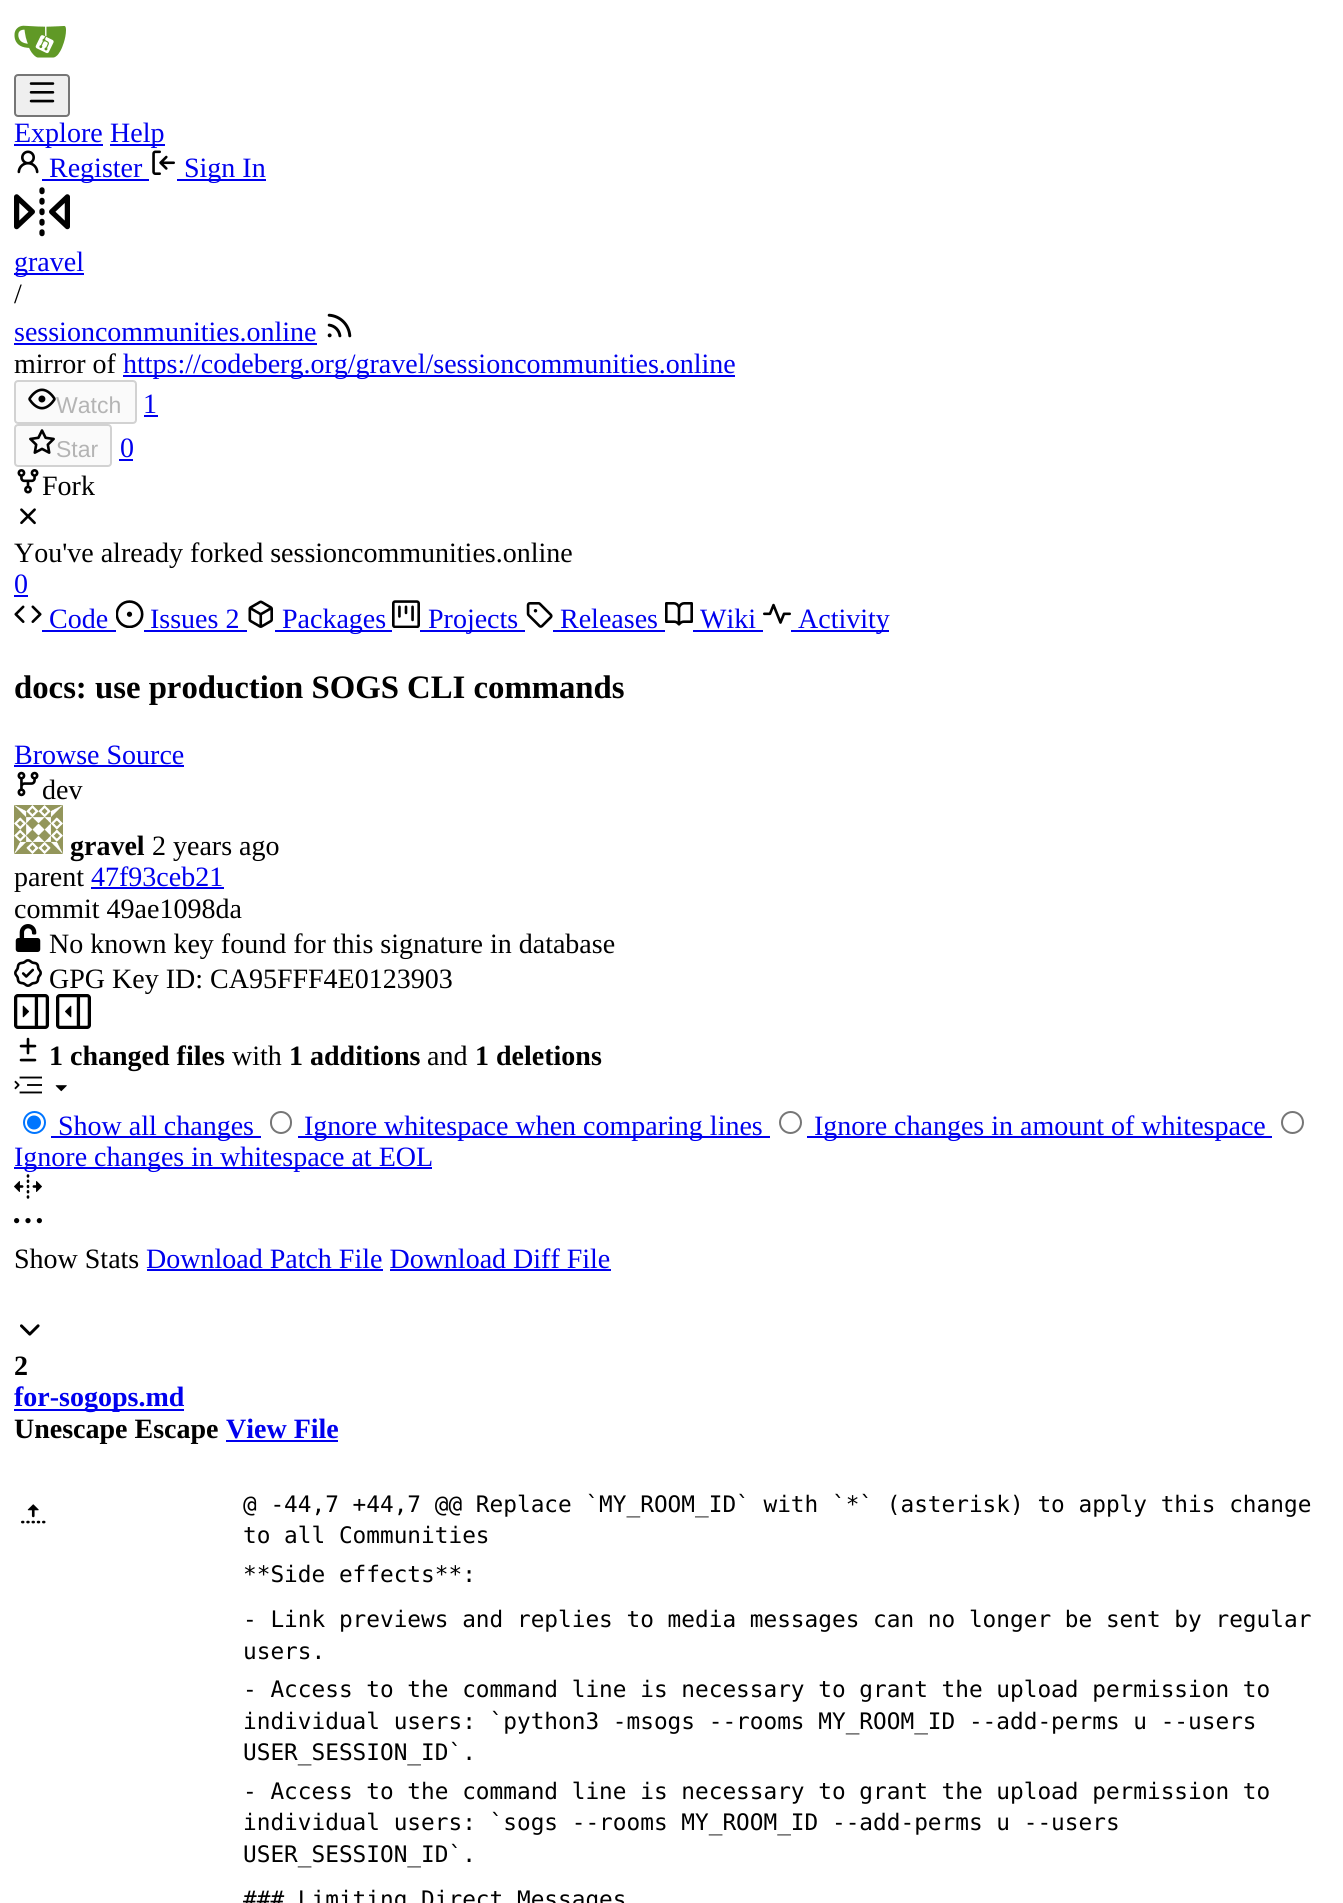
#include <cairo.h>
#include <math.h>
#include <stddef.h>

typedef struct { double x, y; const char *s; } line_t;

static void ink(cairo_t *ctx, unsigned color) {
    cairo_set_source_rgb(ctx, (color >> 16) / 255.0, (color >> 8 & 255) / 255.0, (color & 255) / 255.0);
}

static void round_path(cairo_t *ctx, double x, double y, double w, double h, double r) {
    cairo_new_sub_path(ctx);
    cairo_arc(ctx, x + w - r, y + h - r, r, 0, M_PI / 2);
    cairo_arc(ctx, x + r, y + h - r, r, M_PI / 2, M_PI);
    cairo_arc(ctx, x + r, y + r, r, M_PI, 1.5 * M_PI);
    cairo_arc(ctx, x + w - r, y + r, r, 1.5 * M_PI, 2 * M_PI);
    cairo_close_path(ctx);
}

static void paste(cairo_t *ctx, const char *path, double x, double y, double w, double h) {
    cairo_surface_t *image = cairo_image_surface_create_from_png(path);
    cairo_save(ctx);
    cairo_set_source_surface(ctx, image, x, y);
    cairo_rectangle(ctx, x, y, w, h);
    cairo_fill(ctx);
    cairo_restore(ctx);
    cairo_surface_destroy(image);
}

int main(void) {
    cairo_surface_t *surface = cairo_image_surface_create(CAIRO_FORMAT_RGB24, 1343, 1903);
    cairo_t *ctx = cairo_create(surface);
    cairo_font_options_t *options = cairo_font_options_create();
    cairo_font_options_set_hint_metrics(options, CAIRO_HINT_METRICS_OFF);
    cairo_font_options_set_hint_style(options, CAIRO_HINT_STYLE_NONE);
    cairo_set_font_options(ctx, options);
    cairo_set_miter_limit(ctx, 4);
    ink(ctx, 0xFFFFFF);
    cairo_paint(ctx);
    paste(ctx, "media/1.png", 14, 25, 52, 33);
    ink(ctx, 0xEFEFEF);
    round_path(ctx, 15, 75, 54, 41, 3);
    cairo_fill_preserve(ctx);
    ink(ctx, 0x767676);
    cairo_stroke(ctx);
    paste(ctx, "media/2.png", 29, 82, 26, 21);
    ink(ctx, 0x0000EE);
    cairo_rectangle(ctx, 14, 144, 89, 2);
    cairo_fill(ctx);
    cairo_select_font_face(ctx, "Liberation Serif", CAIRO_FONT_SLANT_NORMAL, CAIRO_FONT_WEIGHT_NORMAL);
    cairo_set_font_size(ctx, 28);
    cairo_move_to(ctx, 14, 142);
    cairo_show_text(ctx, "Explore");
    cairo_rectangle(ctx, 110, 144, 55, 2);
    cairo_fill(ctx);
    cairo_move_to(ctx, 110, 142);
    cairo_show_text(ctx, "Help");
    paste(ctx, "media/3.png", 17, 150, 22, 24);
    cairo_rectangle(ctx, 42, 179, 107, 2);
    cairo_fill(ctx);
    cairo_move_to(ctx, 49, 177);
    cairo_show_text(ctx, "Register");
    paste(ctx, "media/4.png", 152, 150, 23, 25);
    cairo_rectangle(ctx, 177, 179, 89, 2);
    cairo_fill(ctx);
    cairo_move_to(ctx, 184, 177);
    cairo_show_text(ctx, "Sign In");
    paste(ctx, "media/5.png", 14, 187, 56, 50);
    cairo_rectangle(ctx, 14, 273, 70, 2);
    cairo_fill(ctx);
    cairo_move_to(ctx, 14, 271);
    cairo_show_text(ctx, "gravel");
    ink(ctx, 0x000000);
    cairo_move_to(ctx, 14, 303);
    cairo_show_text(ctx, "/");
    ink(ctx, 0x0000EE);
    cairo_move_to(ctx, 14, 341);
    cairo_show_text(ctx, "sessioncommunities.online");
    cairo_rectangle(ctx, 14, 343, 303, 2);
    cairo_fill(ctx);
    paste(ctx, "media/6.png", 327, 313, 25, 25);
    ink(ctx, 0x000000);
    cairo_move_to(ctx, 14, 373);
    cairo_show_text(ctx, "mirror of");
    ink(ctx, 0x0000EE);
    cairo_rectangle(ctx, 123, 375, 612, 2);
    cairo_fill(ctx);
    cairo_move_to(ctx, 123, 373);
    cairo_show_text(ctx, "https://codeberg.org/gravel/sessioncommunities.online");
    ink(ctx, 0xFAFAFA);
    round_path(ctx, 15, 381, 121, 42, 3);
    cairo_fill_preserve(ctx);
    ink(ctx, 0xD2D2D2);
    cairo_stroke(ctx);
    paste(ctx, "media/7.png", 28, 388, 28, 22);
    cairo_select_font_face(ctx, "Liberation Sans", CAIRO_FONT_SLANT_NORMAL, CAIRO_FONT_WEIGHT_NORMAL);
    cairo_set_font_size(ctx, 23);
    ink(ctx, 0xB4B4B4);
    cairo_move_to(ctx, 56, 413);
    cairo_show_text(ctx, "Watch");
    cairo_select_font_face(ctx, "Liberation Serif", CAIRO_FONT_SLANT_NORMAL, CAIRO_FONT_WEIGHT_NORMAL);
    cairo_set_font_size(ctx, 28);
    ink(ctx, 0x0000EE);
    cairo_move_to(ctx, 143, 413);
    cairo_show_text(ctx, "1");
    cairo_rectangle(ctx, 144, 415, 14, 2);
    cairo_fill(ctx);
    ink(ctx, 0xFAFAFA);
    round_path(ctx, 15, 425, 96, 41, 3);
    cairo_fill_preserve(ctx);
    ink(ctx, 0xD2D2D2);
    cairo_stroke(ctx);
    paste(ctx, "media/8.png", 29, 429, 26, 25);
    cairo_select_font_face(ctx, "Liberation Sans", CAIRO_FONT_SLANT_NORMAL, CAIRO_FONT_WEIGHT_NORMAL);
    cairo_set_font_size(ctx, 23);
    ink(ctx, 0xB4B4B4);
    cairo_move_to(ctx, 56, 457);
    cairo_show_text(ctx, "Star");
    cairo_select_font_face(ctx, "Liberation Serif", CAIRO_FONT_SLANT_NORMAL, CAIRO_FONT_WEIGHT_NORMAL);
    cairo_set_font_size(ctx, 28);
    ink(ctx, 0x0000EE);
    cairo_move_to(ctx, 120, 457);
    cairo_show_text(ctx, "0");
    cairo_rectangle(ctx, 119, 459, 14, 2);
    cairo_fill(ctx);
    paste(ctx, "media/9.png", 17, 469, 22, 25);
    ink(ctx, 0x000000);
    cairo_move_to(ctx, 42, 495);
    cairo_show_text(ctx, "Fork");
    paste(ctx, "media/10.png", 20, 508, 16, 17);
    cairo_move_to(ctx, 14, 562);
    cairo_show_text(ctx, "You've already forked sessioncommunities.online");
    ink(ctx, 0x0000EE);
    cairo_move_to(ctx, 14, 593);
    cairo_show_text(ctx, "0");
    cairo_rectangle(ctx, 14, 595, 14, 2);
    cairo_fill(ctx);
    paste(ctx, "media/11.png", 14, 605, 28, 18);
    cairo_move_to(ctx, 49, 628);
    cairo_show_text(ctx, "Code");
    cairo_rectangle(ctx, 42, 630, 74, 2);
    cairo_fill(ctx);
    paste(ctx, "media/12.png", 116, 600, 28, 28);
    cairo_move_to(ctx, 150, 628);
    cairo_show_text(ctx, "Issues 2");
    cairo_rectangle(ctx, 144, 630, 103, 2);
    cairo_fill(ctx);
    paste(ctx, "media/13.png", 248, 600, 25, 28);
    cairo_rectangle(ctx, 275, 630, 117, 2);
    cairo_fill(ctx);
    cairo_move_to(ctx, 282, 628);
    cairo_show_text(ctx, "Packages");
    paste(ctx, "media/14.png", 392, 600, 28, 28);
    cairo_rectangle(ctx, 420, 630, 105, 2);
    cairo_fill(ctx);
    cairo_move_to(ctx, 428, 628);
    cairo_show_text(ctx, "Projects");
    paste(ctx, "media/15.png", 526, 602, 27, 26);
    cairo_move_to(ctx, 560, 628);
    cairo_show_text(ctx, "Releases");
    cairo_rectangle(ctx, 553, 630, 112, 2);
    cairo_fill(ctx);
    paste(ctx, "media/16.png", 665, 602, 28, 24);
    cairo_move_to(ctx, 700, 628);
    cairo_show_text(ctx, "Wiki");
    cairo_rectangle(ctx, 693, 630, 70, 2);
    cairo_fill(ctx);
    paste(ctx, "media/17.png", 763, 603, 28, 21);
    cairo_rectangle(ctx, 791, 630, 98, 2);
    cairo_fill(ctx);
    cairo_move_to(ctx, 798, 628);
    cairo_show_text(ctx, "Activity");
    cairo_select_font_face(ctx, "Liberation Serif", CAIRO_FONT_SLANT_NORMAL, CAIRO_FONT_WEIGHT_BOLD);
    cairo_set_font_size(ctx, 32.75);
    ink(ctx, 0x000000);
    cairo_move_to(ctx, 14, 698);
    cairo_show_text(ctx, "docs: use production SOGS CLI commands");
    cairo_select_font_face(ctx, "Liberation Serif", CAIRO_FONT_SLANT_NORMAL, CAIRO_FONT_WEIGHT_NORMAL);
    cairo_set_font_size(ctx, 28);
    ink(ctx, 0x0000EE);
    cairo_move_to(ctx, 14, 764);
    cairo_show_text(ctx, "Browse Source");
    cairo_rectangle(ctx, 14, 765, 170, 2);
    cairo_fill(ctx);
    paste(ctx, "media/18.png", 17, 771, 22, 26);
    ink(ctx, 0x000000);
    cairo_move_to(ctx, 42, 799);
    cairo_show_text(ctx, "dev");
    paste(ctx, "media/19.png", 14, 805, 49, 49);
    cairo_select_font_face(ctx, "Liberation Serif", CAIRO_FONT_SLANT_NORMAL, CAIRO_FONT_WEIGHT_BOLD);
    cairo_move_to(ctx, 70, 855);
    cairo_show_text(ctx, "gravel");
    cairo_select_font_face(ctx, "Liberation Serif", CAIRO_FONT_SLANT_NORMAL, CAIRO_FONT_WEIGHT_NORMAL);
    cairo_move_to(ctx, 152, 855);
    cairo_show_text(ctx, "2 years ago");
    cairo_move_to(ctx, 14, 886);
    cairo_show_text(ctx, "parent");
    ink(ctx, 0x0000EE);
    cairo_move_to(ctx, 91, 886);
    cairo_show_text(ctx, "47f93ceb21");
    cairo_rectangle(ctx, 91, 887, 133, 2);
    cairo_fill(ctx);
    ink(ctx, 0x000000);
    cairo_move_to(ctx, 14, 918);
    cairo_show_text(ctx, "commit 49ae1098da");
    paste(ctx, "media/20.png", 15, 924, 26, 28);
    cairo_move_to(ctx, 49, 953);
    cairo_show_text(ctx, "No known key found for this signature in database");
    paste(ctx, "media/21.png", 14, 959, 28, 28);
    cairo_move_to(ctx, 49, 988);
    cairo_show_text(ctx, "GPG Key ID: CA95FFF4E0123903");
    paste(ctx, "media/22.png", 14, 994, 35, 35);
    paste(ctx, "media/23.png", 56, 994, 35, 35);
    paste(ctx, "media/24.png", 19, 1037, 18, 25);
    cairo_select_font_face(ctx, "Liberation Serif", CAIRO_FONT_SLANT_NORMAL, CAIRO_FONT_WEIGHT_BOLD);
    cairo_move_to(ctx, 49, 1065);
    cairo_show_text(ctx, "1 changed files");
    cairo_select_font_face(ctx, "Liberation Serif", CAIRO_FONT_SLANT_NORMAL, CAIRO_FONT_WEIGHT_NORMAL);
    cairo_move_to(ctx, 232, 1065);
    cairo_show_text(ctx, "with");
    cairo_select_font_face(ctx, "Liberation Serif", CAIRO_FONT_SLANT_NORMAL, CAIRO_FONT_WEIGHT_BOLD);
    cairo_move_to(ctx, 289, 1065);
    cairo_show_text(ctx, "1 additions");
    cairo_select_font_face(ctx, "Liberation Serif", CAIRO_FONT_SLANT_NORMAL, CAIRO_FONT_WEIGHT_NORMAL);
    cairo_move_to(ctx, 427, 1065);
    cairo_show_text(ctx, "and");
    cairo_select_font_face(ctx, "Liberation Serif", CAIRO_FONT_SLANT_NORMAL, CAIRO_FONT_WEIGHT_BOLD);
    cairo_move_to(ctx, 475, 1065);
    cairo_show_text(ctx, "1 deletions");
    paste(ctx, "media/25.png", 14, 1076, 28, 18);
    paste(ctx, "media/26.png", 55, 1085, 12, 7);
    cairo_arc(ctx, 34.5, 1122.5, 10.5, 0, 2 * M_PI);
    ink(ctx, 0x0075FF);
    cairo_stroke(ctx);
    cairo_arc(ctx, 34, 1122.5, 7, 0, 2 * M_PI);
    cairo_fill(ctx);
    ink(ctx, 0x0000EE);
    cairo_rectangle(ctx, 51, 1136, 210, 2);
    cairo_fill(ctx);
    cairo_select_font_face(ctx, "Liberation Serif", CAIRO_FONT_SLANT_NORMAL, CAIRO_FONT_WEIGHT_NORMAL);
    cairo_move_to(ctx, 58, 1135);
    cairo_show_text(ctx, "Show all changes");
    round_path(ctx, 271, 1112, 20, 21, 10);
    ink(ctx, 0x767676);
    cairo_stroke(ctx);
    ink(ctx, 0x0000EE);
    cairo_rectangle(ctx, 298, 1136, 472, 2);
    cairo_fill(ctx);
    cairo_move_to(ctx, 304, 1135);
    cairo_show_text(ctx, "Ignore whitespace when comparing lines");
    cairo_new_path(ctx);
    cairo_arc(ctx, 790.5, 1122.5, 10.5, 0, 2 * M_PI);
    ink(ctx, 0x767676);
    cairo_stroke(ctx);
    ink(ctx, 0x0000EE);
    cairo_rectangle(ctx, 807, 1136, 465, 2);
    cairo_fill(ctx);
    cairo_move_to(ctx, 814, 1135);
    cairo_show_text(ctx, "Ignore changes in amount of whitespace");
    cairo_new_path(ctx);
    cairo_arc(ctx, 1292.5, 1122.5, 10.5, 0, 2 * M_PI);
    ink(ctx, 0x767676);
    cairo_stroke(ctx);
    ink(ctx, 0x0000EE);
    cairo_rectangle(ctx, 14, 1167, 418, 2);
    cairo_fill(ctx);
    cairo_move_to(ctx, 14, 1166);
    cairo_show_text(ctx, "Ignore changes in whitespace at EOL");
    paste(ctx, "media/27.png", 14, 1174, 28, 25);
    paste(ctx, "media/28.png", 14, 1218, 28, 6);
    ink(ctx, 0x000000);
    cairo_move_to(ctx, 14, 1268);
    cairo_show_text(ctx, "Show Stats");
    ink(ctx, 0x0000EE);
    cairo_move_to(ctx, 146, 1268);
    cairo_show_text(ctx, "Download Patch File Download Diff File");
    cairo_rectangle(ctx, 147, 1269, 236, 2);
    cairo_fill(ctx);
    cairo_rectangle(ctx, 390, 1269, 221, 2);
    cairo_fill(ctx);
    paste(ctx, "media/29.png", 20, 1324, 20, 12);
    cairo_select_font_face(ctx, "Liberation Serif", CAIRO_FONT_SLANT_NORMAL, CAIRO_FONT_WEIGHT_BOLD);
    ink(ctx, 0x000000);
    cairo_move_to(ctx, 14, 1375);
    cairo_show_text(ctx, "2");
    ink(ctx, 0x0000EE);
    cairo_rectangle(ctx, 14, 1409, 170, 2);
    cairo_fill(ctx);
    cairo_move_to(ctx, 14, 1406);
    cairo_show_text(ctx, "for-sogops.md");
    ink(ctx, 0x000000);
    cairo_move_to(ctx, 14, 1438);
    cairo_show_text(ctx, "Unescape Escape");
    ink(ctx, 0x0000EE);
    cairo_move_to(ctx, 226, 1438);
    cairo_show_text(ctx, "View File");
    cairo_rectangle(ctx, 226, 1440, 112, 2);
    cairo_fill(ctx);
    paste(ctx, "media/30.png", 21, 1504, 25, 20);
    cairo_select_font_face(ctx, "DejaVu Sans Mono", CAIRO_FONT_SLANT_NORMAL, CAIRO_FONT_WEIGHT_NORMAL);
    cairo_set_font_size(ctx, 22.75);
    ink(ctx, 0x000000);
    {
        static const line_t items[] = {
            {243, 1512, "@ -44,7 +44,7 @@ Replace `MY_ROOM_ID` with `*` (asterisk) to apply this change"},
            {243, 1543, "to all Communities"},
            {243, 1582, "**Side effects**:"},
            {243, 1627, "- Link previews and replies to media messages can no longer be sent by regular"},
            {243, 1659, "users."},
            {243, 1697, "- Access to the command line is necessary to grant the upload permission to"},
            {243, 1729, "individual users: `python3 -msogs --rooms MY_ROOM_ID --add-perms u --users"},
            {243, 1760, "USER_SESSION_ID`."},
            {243, 1799, "- Access to the command line is necessary to grant the upload permission to"},
            {243, 1830, "individual users: `sogs --rooms MY_ROOM_ID --add-perms u --users"},
            {243, 1862, "USER_SESSION_ID`."},
            {243, 1907, "### Limiting Direct Messages"},
        };
        for (size_t i = 0; i < sizeof items / sizeof *items; i++) {
            cairo_move_to(ctx, items[i].x, items[i].y);
            cairo_show_text(ctx, items[i].s);
        }
    }
    cairo_surface_write_to_png(surface, "image.png");
    cairo_font_options_destroy(options);
    cairo_destroy(ctx);
    cairo_surface_destroy(surface);
    return 0;
}
